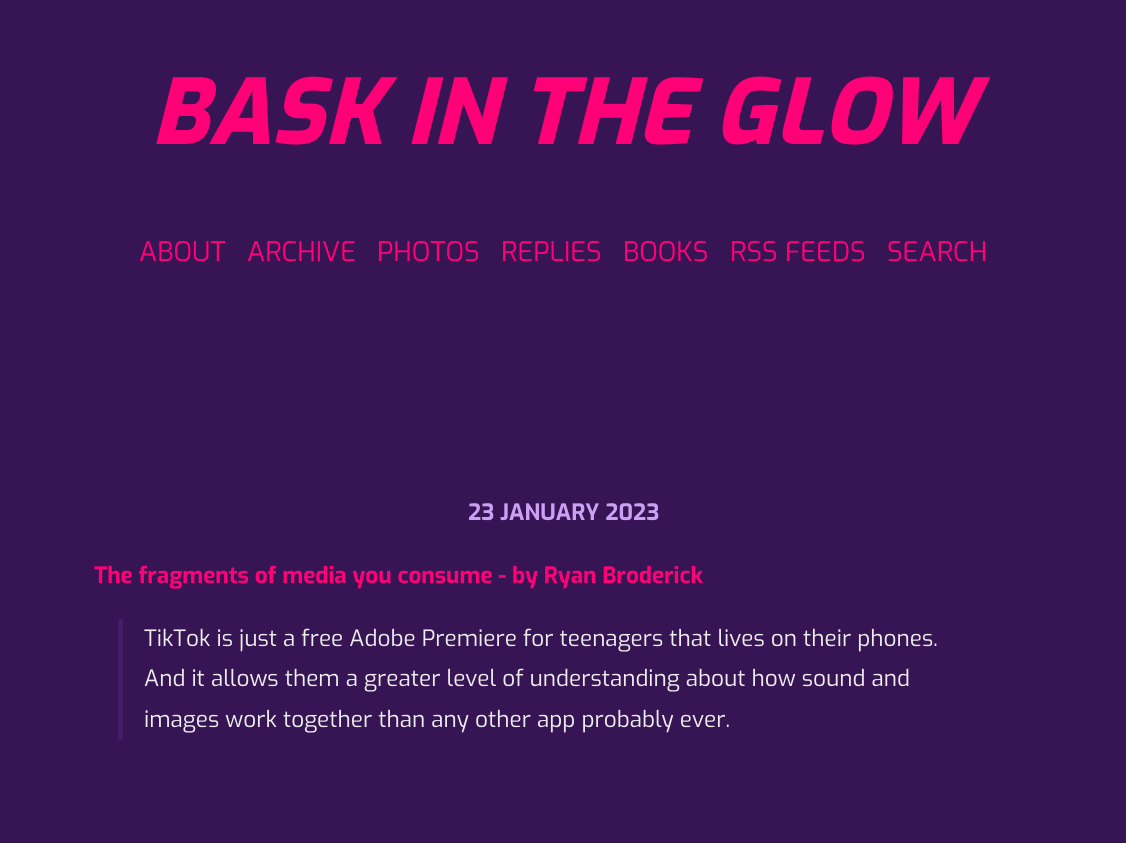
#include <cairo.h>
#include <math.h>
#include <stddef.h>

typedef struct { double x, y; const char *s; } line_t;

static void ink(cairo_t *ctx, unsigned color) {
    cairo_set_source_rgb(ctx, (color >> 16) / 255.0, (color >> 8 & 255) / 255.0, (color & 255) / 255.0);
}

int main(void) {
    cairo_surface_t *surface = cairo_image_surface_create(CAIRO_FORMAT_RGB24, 1126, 843);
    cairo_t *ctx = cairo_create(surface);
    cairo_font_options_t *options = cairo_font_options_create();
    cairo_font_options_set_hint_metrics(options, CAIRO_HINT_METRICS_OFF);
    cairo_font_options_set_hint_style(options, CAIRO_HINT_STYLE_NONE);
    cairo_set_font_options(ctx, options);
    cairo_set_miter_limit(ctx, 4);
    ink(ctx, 0x371554);
    cairo_paint(ctx);
    cairo_select_font_face(ctx, "Exo ExtraBold", CAIRO_FONT_SLANT_ITALIC, CAIRO_FONT_WEIGHT_NORMAL);
    cairo_set_font_size(ctx, 90);
    ink(ctx, 0xFF0077);
    cairo_move_to(ctx, 151, 144);
    cairo_show_text(ctx, "BASK IN THE GLOW");
    cairo_select_font_face(ctx, "Exo", CAIRO_FONT_SLANT_NORMAL, CAIRO_FONT_WEIGHT_NORMAL);
    cairo_set_font_size(ctx, 27);
    {
        static const line_t items[] = {
            {139, 261, "ABOUT"},
            {247, 261, "ARCHIVE"},
            {377, 261, "PHOTOS"},
            {501, 261, "REPLIES"},
            {623, 261, "BOOKS"},
            {730, 261, "RSS FEEDS"},
            {887, 261, "SEARCH"},
        };
        for (size_t i = 0; i < sizeof items / sizeof *items; i++) {
            cairo_move_to(ctx, items[i].x, items[i].y);
            cairo_show_text(ctx, items[i].s);
        }
    }
    cairo_select_font_face(ctx, "Exo", CAIRO_FONT_SLANT_NORMAL, CAIRO_FONT_WEIGHT_BOLD);
    cairo_set_font_size(ctx, 22.5);
    ink(ctx, 0xCDA0F4);
    cairo_move_to(ctx, 468, 520);
    cairo_show_text(ctx, "23 JANUARY 2023");
    ink(ctx, 0xFF0077);
    cairo_move_to(ctx, 94, 583);
    cairo_show_text(ctx, "The fragments of media you consume - by Ryan Broderick");
    ink(ctx, 0x451D67);
    cairo_rectangle(ctx, 118, 619, 5, 121);
    cairo_fill(ctx);
    cairo_select_font_face(ctx, "Exo", CAIRO_FONT_SLANT_NORMAL, CAIRO_FONT_WEIGHT_NORMAL);
    ink(ctx, 0xEEEEEE);
    {
        static const line_t items[] = {
            {144, 646, "TikTok is just a free Adobe Premiere for teenagers that lives on their phones."},
            {144, 686, "And it allows them a greater level of understanding about how sound and"},
            {144, 727, "images work together than any other app probably ever."},
        };
        for (size_t i = 0; i < sizeof items / sizeof *items; i++) {
            cairo_move_to(ctx, items[i].x, items[i].y);
            cairo_show_text(ctx, items[i].s);
        }
    }
    cairo_surface_write_to_png(surface, "image.png");
    cairo_font_options_destroy(options);
    cairo_destroy(ctx);
    cairo_surface_destroy(surface);
    return 0;
}
